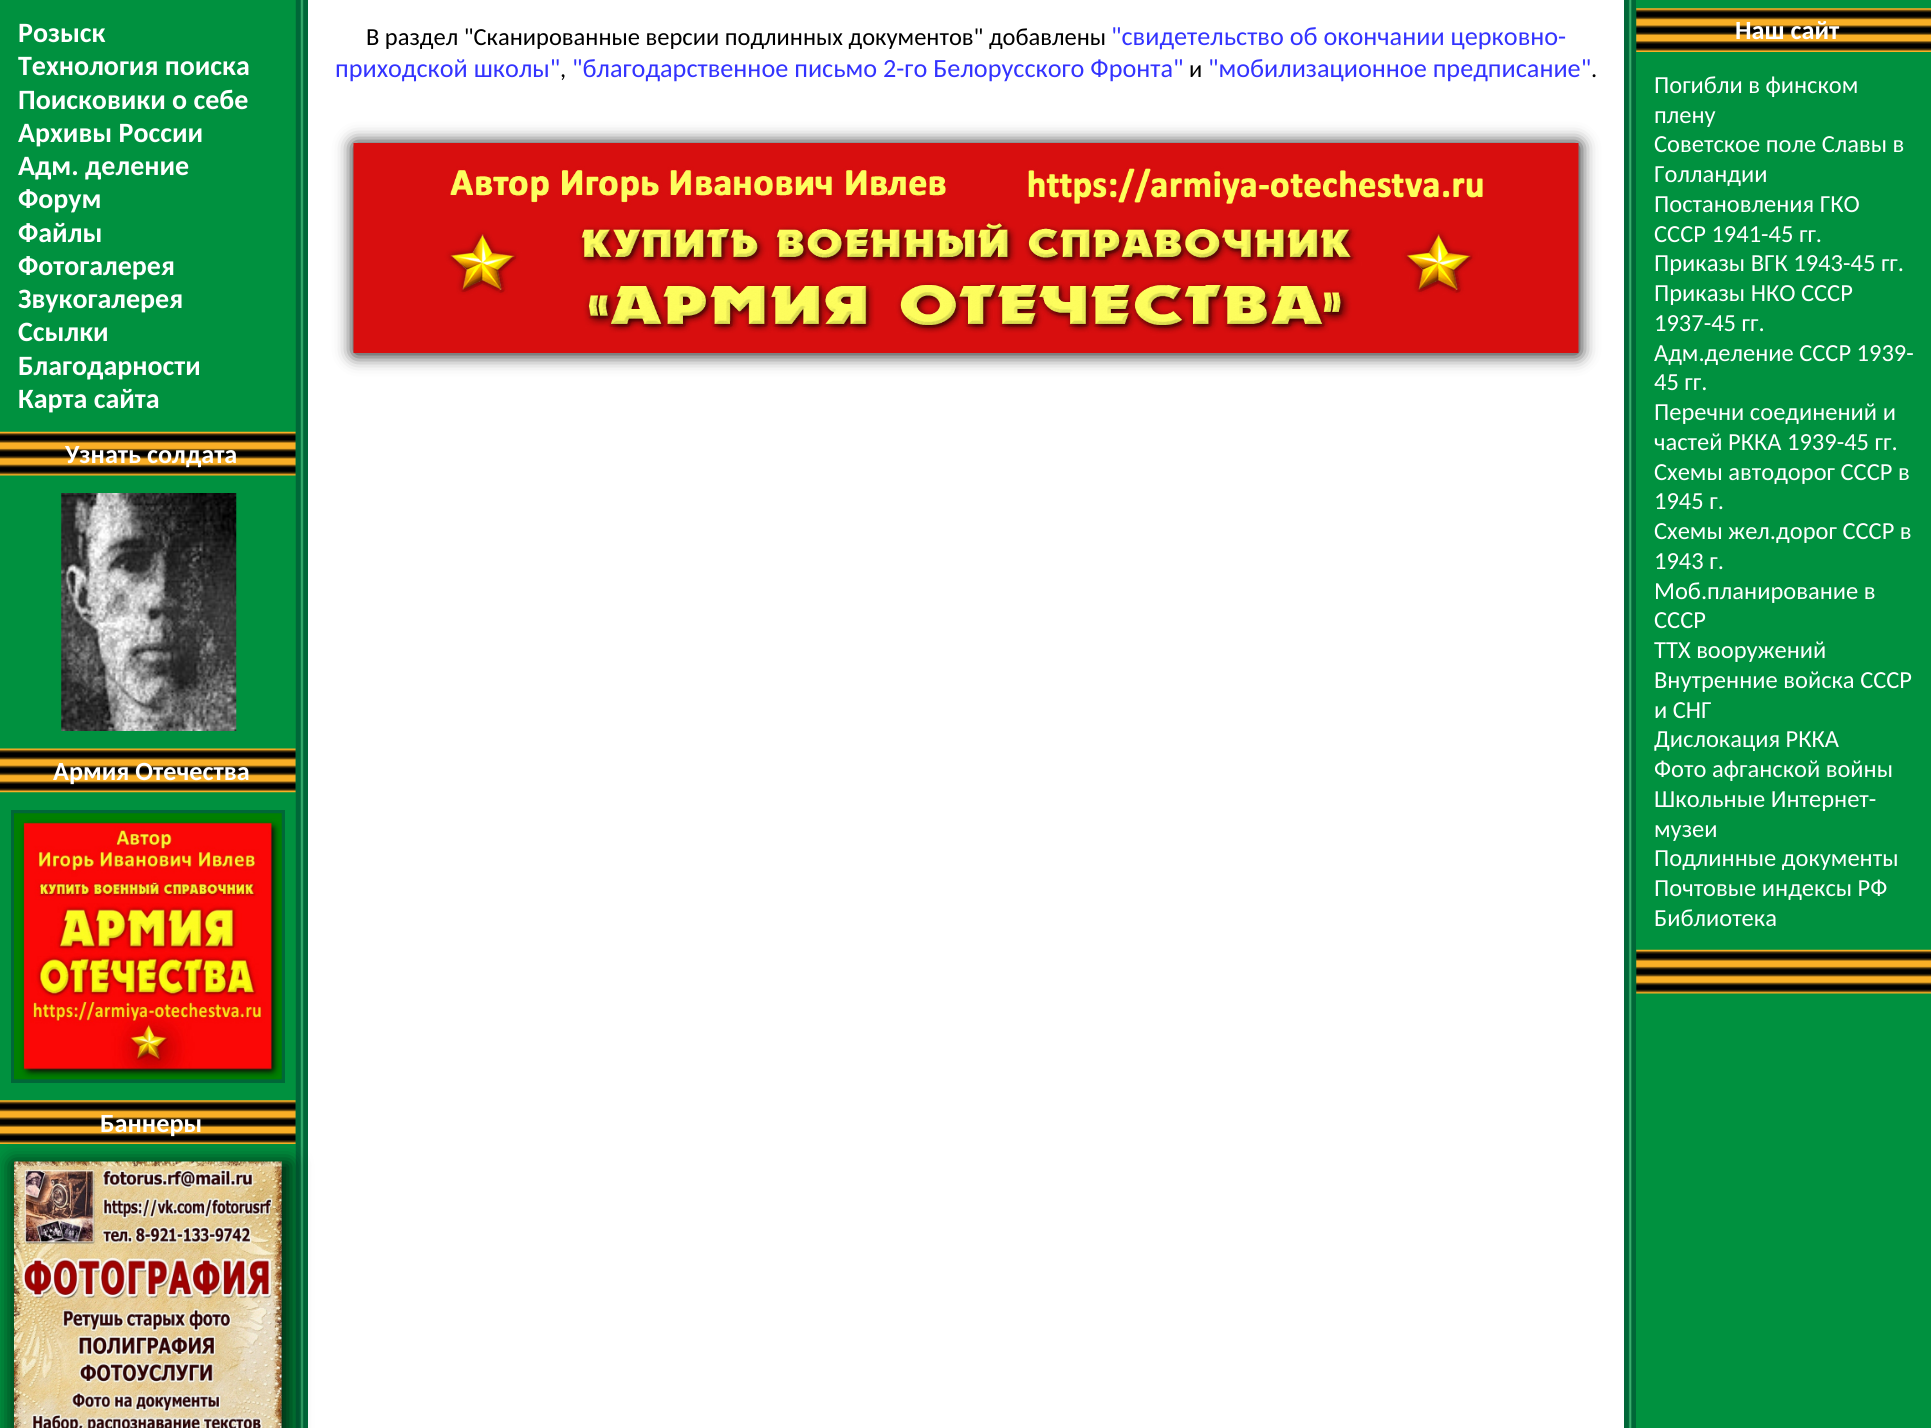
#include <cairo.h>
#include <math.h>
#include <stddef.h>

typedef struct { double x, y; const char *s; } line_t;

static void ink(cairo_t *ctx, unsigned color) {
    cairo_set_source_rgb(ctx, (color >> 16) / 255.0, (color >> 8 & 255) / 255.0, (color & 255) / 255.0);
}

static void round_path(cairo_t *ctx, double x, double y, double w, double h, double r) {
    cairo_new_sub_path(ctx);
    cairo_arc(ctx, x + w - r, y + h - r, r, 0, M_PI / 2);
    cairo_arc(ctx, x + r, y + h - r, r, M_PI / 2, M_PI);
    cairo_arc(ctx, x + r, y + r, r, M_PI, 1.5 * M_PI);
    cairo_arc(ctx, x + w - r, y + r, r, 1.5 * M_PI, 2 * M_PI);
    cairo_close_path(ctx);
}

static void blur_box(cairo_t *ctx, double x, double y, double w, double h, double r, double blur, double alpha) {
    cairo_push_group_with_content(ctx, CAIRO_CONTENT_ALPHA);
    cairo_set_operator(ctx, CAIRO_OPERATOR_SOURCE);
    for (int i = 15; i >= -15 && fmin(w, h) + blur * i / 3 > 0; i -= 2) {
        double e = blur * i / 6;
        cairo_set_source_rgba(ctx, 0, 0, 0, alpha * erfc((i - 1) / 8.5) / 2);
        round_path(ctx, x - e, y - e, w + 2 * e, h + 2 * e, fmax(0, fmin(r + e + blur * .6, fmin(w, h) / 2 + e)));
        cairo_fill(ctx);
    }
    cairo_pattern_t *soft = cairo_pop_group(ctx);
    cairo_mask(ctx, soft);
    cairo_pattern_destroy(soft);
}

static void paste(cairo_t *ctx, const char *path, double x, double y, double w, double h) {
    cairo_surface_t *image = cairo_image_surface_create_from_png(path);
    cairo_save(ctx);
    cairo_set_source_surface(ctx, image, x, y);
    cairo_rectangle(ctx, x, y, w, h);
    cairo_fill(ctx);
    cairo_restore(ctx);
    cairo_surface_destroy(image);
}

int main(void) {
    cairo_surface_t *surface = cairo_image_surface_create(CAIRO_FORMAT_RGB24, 1931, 1428);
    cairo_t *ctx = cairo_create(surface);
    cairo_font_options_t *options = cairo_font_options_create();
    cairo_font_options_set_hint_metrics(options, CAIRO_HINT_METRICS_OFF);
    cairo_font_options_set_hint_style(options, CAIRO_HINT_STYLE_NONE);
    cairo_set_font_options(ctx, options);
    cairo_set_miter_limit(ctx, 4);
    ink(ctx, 0xFFFFFF);
    cairo_paint(ctx);
    ink(ctx, 0x00913F);
    cairo_rectangle(ctx, 0, 0, 296, 1428);
    cairo_fill(ctx);
    cairo_select_font_face(ctx, "Carlito", CAIRO_FONT_SLANT_NORMAL, CAIRO_FONT_WEIGHT_BOLD);
    cairo_set_font_size(ctx, 28);
    ink(ctx, 0xFFFFFF);
    {
        static const line_t items[] = {
            {18, 42, "Розыск"},
            {18, 75, "Технология поиска"},
            {18, 109, "Поисковики о себе"},
            {18, 142, "Архивы России"},
            {18, 175, "Адм. деление"},
            {18, 208, "Форум"},
            {18, 242, "Файлы"},
            {18, 275, "Фотогалерея"},
            {18, 308, "Звукогалерея"},
            {18, 341, "Ссылки"},
            {18, 375, "Благодарности"},
            {18, 408, "Карта сайта"},
        };
        for (size_t i = 0; i < sizeof items / sizeof *items; i++) {
            cairo_move_to(ctx, items[i].x, items[i].y);
            cairo_show_text(ctx, items[i].s);
        }
    }
    paste(ctx, "media/1.png", 0, 431, 296, 45);
    cairo_set_font_size(ctx, 26.25);
    cairo_move_to(ctx, 65, 463);
    cairo_show_text(ctx, "Узнать солдата");
    paste(ctx, "media/2.png", 61, 493, 176, 238);
    paste(ctx, "media/3.png", 0, 748, 296, 45);
    cairo_move_to(ctx, 53, 780);
    cairo_show_text(ctx, "Армия Отечества");
    cairo_rectangle(ctx, 13, 812, 270, 269);
    ink(ctx, 0x006738);
    cairo_set_line_width(ctx, 4);
    cairo_stroke(ctx);
    paste(ctx, "media/4.png", 14, 813, 268, 267);
    paste(ctx, "media/5.png", 0, 1100, 296, 44);
    ink(ctx, 0xFFFFFF);
    cairo_move_to(ctx, 100, 1132);
    cairo_show_text(ctx, "Баннеры");
    paste(ctx, "media/7.png", 295, 0, 13, 1428);
    ink(ctx, 0x000000);
    blur_box(ctx, 12, 1162, 279, 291, 0, 9.5, 0.73);
    paste(ctx, "media/6.png", 14, 1161, 268, 267);
    cairo_select_font_face(ctx, "Carlito", CAIRO_FONT_SLANT_NORMAL, CAIRO_FONT_WEIGHT_NORMAL);
    cairo_set_font_size(ctx, 24.5);
    ink(ctx, 0x000000);
    cairo_move_to(ctx, 366, 45);
    cairo_show_text(ctx, "В раздел \"Сканированные версии подлинных документов\" добавлены");
    cairo_set_font_size(ctx, 26.25);
    ink(ctx, 0x3333FF);
    cairo_move_to(ctx, 1111, 45);
    cairo_show_text(ctx, "\"свидетельство об окончании церковно-");
    cairo_move_to(ctx, 335, 77);
    cairo_show_text(ctx, "приходской школы\"");
    cairo_set_font_size(ctx, 24.5);
    ink(ctx, 0x000000);
    cairo_move_to(ctx, 560, 77);
    cairo_show_text(ctx, ",");
    cairo_set_font_size(ctx, 26.25);
    ink(ctx, 0x3333FF);
    cairo_move_to(ctx, 572, 77);
    cairo_show_text(ctx, "\"благодарственное письмо 2-го Белорусского Фронта\"");
    cairo_set_font_size(ctx, 24.5);
    ink(ctx, 0x000000);
    cairo_move_to(ctx, 1189, 77);
    cairo_show_text(ctx, "и");
    cairo_set_font_size(ctx, 26.25);
    ink(ctx, 0x3333FF);
    cairo_move_to(ctx, 1208, 77);
    cairo_show_text(ctx, "\"мобилизационное предписание\"");
    cairo_set_font_size(ctx, 24.5);
    ink(ctx, 0x000000);
    cairo_move_to(ctx, 1591, 77);
    cairo_show_text(ctx, ".");
    ink(ctx, 0x000000);
    blur_box(ctx, 354, 144, 1225, 210, 0, 9, 1);
    paste(ctx, "media/8.png", 353, 143, 1226, 210);
    paste(ctx, "media/9.png", 1624, 0, 12, 1428);
    ink(ctx, 0x00913F);
    cairo_rectangle(ctx, 1636, 0, 295, 1428);
    cairo_fill(ctx);
    paste(ctx, "media/10.png", 1636, 8, 295, 44);
    cairo_select_font_face(ctx, "Carlito", CAIRO_FONT_SLANT_NORMAL, CAIRO_FONT_WEIGHT_BOLD);
    cairo_set_font_size(ctx, 26.25);
    ink(ctx, 0xFFFFFF);
    cairo_move_to(ctx, 1735, 39);
    cairo_show_text(ctx, "Наш сайт");
    cairo_select_font_face(ctx, "Carlito", CAIRO_FONT_SLANT_NORMAL, CAIRO_FONT_WEIGHT_NORMAL);
    cairo_set_font_size(ctx, 24.5);
    {
        static const line_t items[] = {
            {1654, 93, "Погибли в финском"},
            {1654, 123, "плену"},
            {1654, 152, "Советское поле Славы в"},
            {1654, 182, "Голландии"},
            {1654, 212, "Постановления ГКО"},
            {1654, 242, "СССР 1941-45 гг."},
            {1654, 271, "Приказы ВГК 1943-45 гг."},
            {1654, 301, "Приказы НКО СССР"},
            {1654, 331, "1937-45 гг."},
            {1654, 361, "Адм.деление СССР 1939-"},
            {1654, 390, "45 гг."},
            {1654, 420, "Перечни соединений и"},
            {1654, 450, "частей РККА 1939-45 гг."},
            {1654, 480, "Схемы автодорог СССР в"},
            {1654, 509, "1945 г."},
            {1654, 539, "Схемы жел.дорог СССР в"},
            {1654, 569, "1943 г."},
            {1654, 599, "Моб.планирование в"},
            {1654, 628, "СССР"},
            {1654, 658, "ТТХ вооружений"},
            {1654, 688, "Внутренние войска СССР"},
            {1654, 718, "и СНГ"},
            {1654, 747, "Дислокация РККА"},
            {1654, 777, "Фото афганской войны"},
            {1654, 807, "Школьные Интернет-"},
            {1654, 837, "музеи"},
            {1654, 866, "Подлинные документы"},
            {1654, 896, "Почтовые индексы РФ"},
            {1654, 926, "Библиотека"},
        };
        for (size_t i = 0; i < sizeof items / sizeof *items; i++) {
            cairo_move_to(ctx, items[i].x, items[i].y);
            cairo_show_text(ctx, items[i].s);
        }
    }
    paste(ctx, "media/11.png", 1636, 949, 295, 45);
    cairo_surface_write_to_png(surface, "image.png");
    cairo_font_options_destroy(options);
    cairo_destroy(ctx);
    cairo_surface_destroy(surface);
    return 0;
}
